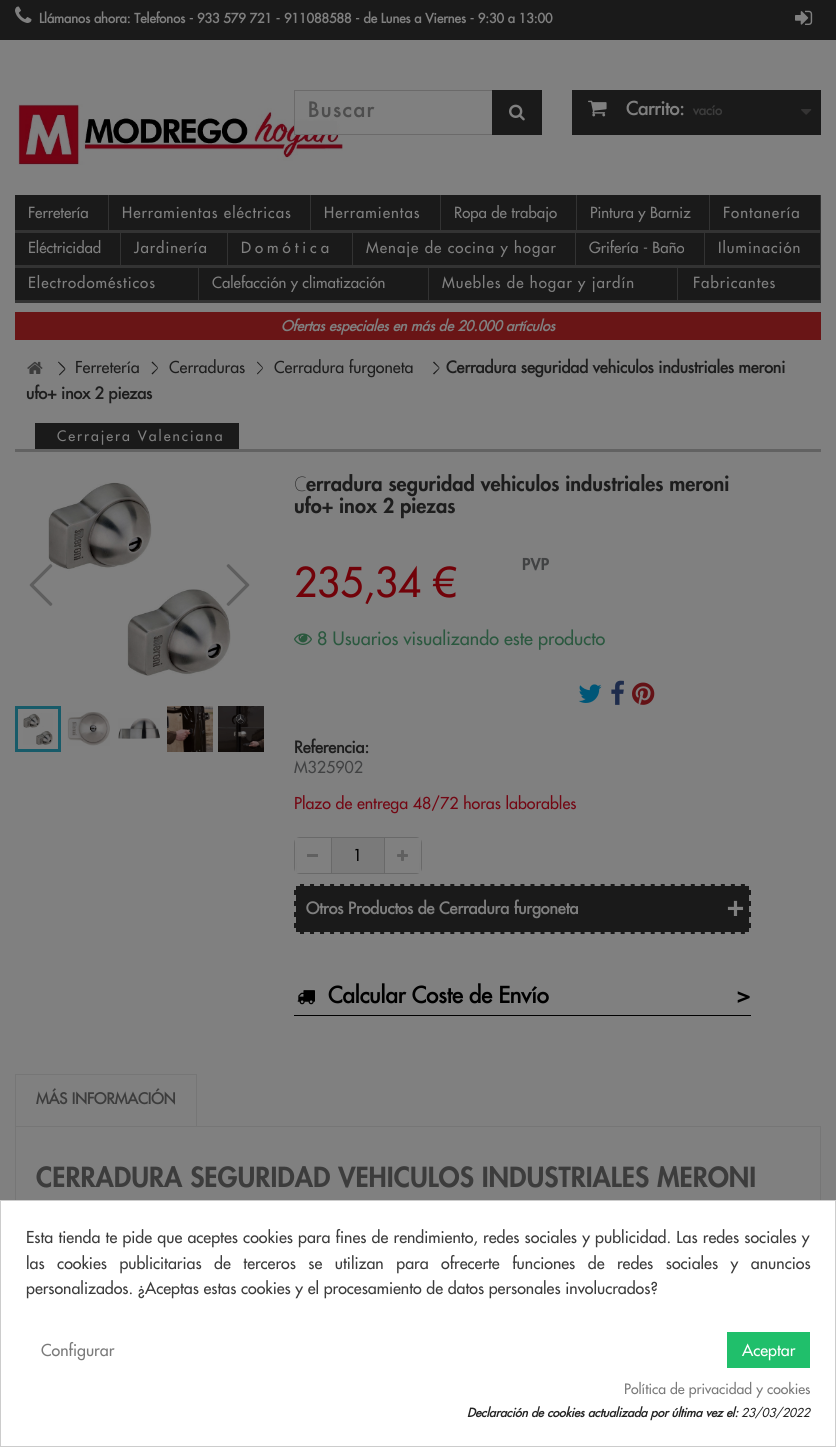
#include <cairo.h>
#include <math.h>
#include <stddef.h>

typedef struct { double x, y, w, h; unsigned color; } box_t;

static void ink(cairo_t *ctx, unsigned color) {
    cairo_set_source_rgb(ctx, (color >> 16) / 255.0, (color >> 8 & 255) / 255.0, (color & 255) / 255.0);
}

static void write_spaced(cairo_t *ctx, double x, double y, const char *s, double letter, double word) {
    cairo_move_to(ctx, x, y);
    while (*s) {
        char ch[5] = {0};
        int n = 0;
        do ch[n++] = *s++; while ((*s & 0xC0) == 0x80);
        cairo_show_text(ctx, ch);
        cairo_rel_move_to(ctx, letter + word * (*ch == ' '), 0);
    }
}

static void paste(cairo_t *ctx, const char *path, double x, double y, double w, double h) {
    cairo_surface_t *image = cairo_image_surface_create_from_png(path);
    cairo_save(ctx);
    cairo_set_source_surface(ctx, image, x, y);
    cairo_rectangle(ctx, x, y, w, h);
    cairo_fill(ctx);
    cairo_restore(ctx);
    cairo_surface_destroy(image);
}

int main(void) {
    cairo_surface_t *surface = cairo_image_surface_create(CAIRO_FORMAT_RGB24, 836, 1447);
    cairo_t *ctx = cairo_create(surface);
    cairo_font_options_t *options = cairo_font_options_create();
    cairo_font_options_set_hint_metrics(options, CAIRO_HINT_METRICS_OFF);
    cairo_font_options_set_hint_style(options, CAIRO_HINT_STYLE_NONE);
    cairo_set_font_options(ctx, options);
    cairo_set_miter_limit(ctx, 4);
    cairo_pattern_t *gradient;
    ink(ctx, 0x808080);
    cairo_paint(ctx);
    ink(ctx, 0x1A1A1A);
    cairo_rectangle(ctx, 0, 0, 836, 40);
    cairo_fill(ctx);
    paste(ctx, "media/1.png", 15, 6, 17, 17);
    cairo_select_font_face(ctx, "Futura", CAIRO_FONT_SLANT_NORMAL, CAIRO_FONT_WEIGHT_BOLD);
    cairo_set_font_size(ctx, 13);
    ink(ctx, 0x808080);
    cairo_move_to(ctx, 39, 23);
    cairo_show_text(ctx, "Llámanos ahora: Telefonos - 933 579 721 - 911088588 - de Lunes a Viernes - 9:30 a 13:00");
    paste(ctx, "media/2.png", 795, 10, 18, 15);
    paste(ctx, "media/6.png", 18, 104, 325, 61);
    ink(ctx, 0x7E7E7E);
    cairo_rectangle(ctx, 295, 121, 42, 13);
    cairo_fill(ctx);
    cairo_rectangle(ctx, 294.5, 90.5, 247, 44);
    ink(ctx, 0x6B6A6A);
    cairo_set_line_width(ctx, 1);
    cairo_stroke(ctx);
    cairo_set_font_size(ctx, 20);
    ink(ctx, 0x4D4D4D);
    write_spaced(ctx, 308, 117, "Buscar", 2, 0);
    ink(ctx, 0x1A1A1A);
    cairo_rectangle(ctx, 492, 90, 50, 45);
    cairo_fill(ctx);
    paste(ctx, "media/3.png", 509, 104, 16, 17);
    cairo_rectangle(ctx, 572, 90, 249, 45);
    cairo_fill(ctx);
    paste(ctx, "media/4.png", 588, 100, 19, 17);
    cairo_set_font_size(ctx, 18);
    ink(ctx, 0x808080);
    cairo_move_to(ctx, 626, 115);
    cairo_show_text(ctx, "Carrito:");
    cairo_set_font_size(ctx, 13);
    ink(ctx, 0x3C3C3C);
    cairo_move_to(ctx, 693, 115);
    cairo_show_text(ctx, "vacío");
    paste(ctx, "media/5.png", 801, 109, 11, 6);
    {
        static const box_t items[] = {
            {15, 195, 805, 105, 0x1A1A1A},
            {15, 300, 806, 3, 0x333333},
            {108, 195, 1, 38, 0x333333},
            {15, 230, 93, 3, 0x333333},
        };
        for (size_t i = 0; i < sizeof items / sizeof *items; i++) {
            ink(ctx, items[i].color);
            cairo_rectangle(ctx, items[i].x, items[i].y, items[i].w, items[i].h);
            cairo_fill(ctx);
        }
    }
    cairo_select_font_face(ctx, "Futura", CAIRO_FONT_SLANT_NORMAL, CAIRO_FONT_WEIGHT_NORMAL);
    cairo_set_font_size(ctx, 15);
    ink(ctx, 0x808080);
    cairo_move_to(ctx, 28, 218);
    cairo_show_text(ctx, "Ferretería");
    ink(ctx, 0x333333);
    cairo_rectangle(ctx, 310, 195, 1, 38);
    cairo_fill(ctx);
    cairo_rectangle(ctx, 109, 230, 201, 3);
    cairo_fill(ctx);
    ink(ctx, 0x808080);
    write_spaced(ctx, 122, 218, "Herramientas eléctricas", 1, 0);
    ink(ctx, 0x333333);
    cairo_rectangle(ctx, 440, 195, 1, 38);
    cairo_fill(ctx);
    cairo_rectangle(ctx, 311, 230, 129, 3);
    cairo_fill(ctx);
    ink(ctx, 0x808080);
    write_spaced(ctx, 324, 218, "Herramientas", 1, 0);
    ink(ctx, 0x333333);
    cairo_rectangle(ctx, 576, 195, 1, 38);
    cairo_fill(ctx);
    cairo_rectangle(ctx, 441, 230, 135, 3);
    cairo_fill(ctx);
    ink(ctx, 0x808080);
    cairo_move_to(ctx, 454, 218);
    cairo_show_text(ctx, "Ropa de trabajo");
    ink(ctx, 0x333333);
    cairo_rectangle(ctx, 709, 195, 1, 38);
    cairo_fill(ctx);
    cairo_rectangle(ctx, 577, 230, 132, 3);
    cairo_fill(ctx);
    ink(ctx, 0x808080);
    cairo_move_to(ctx, 590, 218);
    cairo_show_text(ctx, "Pintura y Barniz");
    ink(ctx, 0x333333);
    cairo_rectangle(ctx, 820, 195, 1, 108);
    cairo_fill(ctx);
    cairo_rectangle(ctx, 710, 230, 110, 3);
    cairo_fill(ctx);
    ink(ctx, 0x808080);
    write_spaced(ctx, 723, 218, "Fontanería", 1, 0);
    ink(ctx, 0x333333);
    cairo_rectangle(ctx, 120, 230, 1, 38);
    cairo_fill(ctx);
    cairo_rectangle(ctx, 15, 265, 105, 3);
    cairo_fill(ctx);
    ink(ctx, 0x808080);
    cairo_move_to(ctx, 28, 253);
    cairo_show_text(ctx, "Eléctricidad");
    ink(ctx, 0x333333);
    cairo_rectangle(ctx, 227, 230, 1, 38);
    cairo_fill(ctx);
    cairo_rectangle(ctx, 121, 265, 106, 3);
    cairo_fill(ctx);
    ink(ctx, 0x808080);
    write_spaced(ctx, 134, 253, "Jardinería", 1, 0);
    ink(ctx, 0x333333);
    cairo_rectangle(ctx, 352, 230, 1, 38);
    cairo_fill(ctx);
    cairo_rectangle(ctx, 228, 265, 124, 3);
    cairo_fill(ctx);
    ink(ctx, 0x808080);
    write_spaced(ctx, 241, 253, "Domótica", 4, 0);
    ink(ctx, 0x333333);
    cairo_rectangle(ctx, 575, 230, 1, 38);
    cairo_fill(ctx);
    cairo_rectangle(ctx, 353, 265, 222, 3);
    cairo_fill(ctx);
    ink(ctx, 0x808080);
    write_spaced(ctx, 366, 253, "Menaje de cocina y hogar", 1, 0);
    ink(ctx, 0x333333);
    cairo_rectangle(ctx, 704, 230, 1, 38);
    cairo_fill(ctx);
    cairo_rectangle(ctx, 576, 265, 128, 3);
    cairo_fill(ctx);
    ink(ctx, 0x808080);
    cairo_move_to(ctx, 589, 253);
    cairo_show_text(ctx, "Grifería - Baño");
    ink(ctx, 0x333333);
    cairo_rectangle(ctx, 705, 265, 115, 3);
    cairo_fill(ctx);
    ink(ctx, 0x808080);
    write_spaced(ctx, 718, 253, "Iluminación", 1, 0);
    ink(ctx, 0x333333);
    cairo_rectangle(ctx, 198, 265, 1, 38);
    cairo_fill(ctx);
    ink(ctx, 0x808080);
    write_spaced(ctx, 28, 288, "Electrodomésticos", 1, 0);
    ink(ctx, 0x333333);
    cairo_rectangle(ctx, 428, 265, 1, 38);
    cairo_fill(ctx);
    ink(ctx, 0x808080);
    cairo_move_to(ctx, 212, 288);
    cairo_show_text(ctx, "Calefacción y climatización");
    ink(ctx, 0x333333);
    cairo_rectangle(ctx, 677, 265, 1, 38);
    cairo_fill(ctx);
    ink(ctx, 0x808080);
    write_spaced(ctx, 442, 288, "Muebles de hogar y jardín", 1, 0);
    write_spaced(ctx, 693, 288, "Fabricantes", 1, 0);
    ink(ctx, 0x691516);
    cairo_rectangle(ctx, 15, 312, 806, 28);
    cairo_fill(ctx);
    cairo_select_font_face(ctx, "Futura", CAIRO_FONT_SLANT_ITALIC, CAIRO_FONT_WEIGHT_BOLD);
    cairo_set_font_size(ctx, 14);
    ink(ctx, 0x808080);
    cairo_move_to(ctx, 281, 331);
    cairo_show_text(ctx, "Ofertas especiales en más de 20.000 artículos");
    ink(ctx, 0x1A1A1A);
    cairo_new_path(ctx);
    cairo_move_to(ctx, 257.5, 361.5);
    cairo_line_to(ctx, 263, 367.5);
    cairo_line_to(ctx, 262.5, 368);
    cairo_line_to(ctx, 257, 362.5);
    cairo_close_path(ctx);
    cairo_move_to(ctx, 262.5, 368);
    cairo_line_to(ctx, 263, 368.5);
    cairo_line_to(ctx, 257.5, 374.5);
    cairo_line_to(ctx, 257, 373.5);
    cairo_close_path(ctx);
    cairo_fill(ctx);
    cairo_select_font_face(ctx, "Futura", CAIRO_FONT_SLANT_NORMAL, CAIRO_FONT_WEIGHT_NORMAL);
    cairo_set_font_size(ctx, 16);
    ink(ctx, 0x1D1D1D);
    cairo_move_to(ctx, 274, 373);
    cairo_show_text(ctx, "Cerradura furgoneta");
    ink(ctx, 0x1A1A1A);
    cairo_new_path(ctx);
    cairo_move_to(ctx, 434, 361.5);
    cairo_line_to(ctx, 439.5, 367.5);
    cairo_line_to(ctx, 439, 368);
    cairo_line_to(ctx, 433, 362.5);
    cairo_close_path(ctx);
    cairo_move_to(ctx, 439, 368);
    cairo_line_to(ctx, 439.5, 368.5);
    cairo_line_to(ctx, 434, 374.5);
    cairo_line_to(ctx, 433, 373.5);
    cairo_close_path(ctx);
    cairo_fill(ctx);
    cairo_select_font_face(ctx, "Futura", CAIRO_FONT_SLANT_NORMAL, CAIRO_FONT_WEIGHT_BOLD);
    ink(ctx, 0x1D1D1D);
    cairo_move_to(ctx, 446, 373);
    cairo_show_text(ctx, "Cerradura seguridad vehiculos industriales meroni");
    cairo_move_to(ctx, 26, 399);
    cairo_show_text(ctx, "ufo+ inox 2 piezas");
    ink(ctx, 0x1A1A1A);
    cairo_new_path(ctx);
    cairo_move_to(ctx, 152.5, 361.5);
    cairo_line_to(ctx, 158, 367.5);
    cairo_line_to(ctx, 157.5, 368);
    cairo_line_to(ctx, 151.5, 362.5);
    cairo_close_path(ctx);
    cairo_move_to(ctx, 157.5, 368);
    cairo_line_to(ctx, 158, 368.5);
    cairo_line_to(ctx, 152.5, 374.5);
    cairo_line_to(ctx, 151.5, 373.5);
    cairo_close_path(ctx);
    cairo_fill(ctx);
    cairo_select_font_face(ctx, "Futura", CAIRO_FONT_SLANT_NORMAL, CAIRO_FONT_WEIGHT_NORMAL);
    ink(ctx, 0x1D1D1D);
    cairo_move_to(ctx, 169, 373);
    cairo_show_text(ctx, "Cerraduras");
    ink(ctx, 0x1A1A1A);
    cairo_new_path(ctx);
    cairo_move_to(ctx, 58.5, 361.5);
    cairo_line_to(ctx, 64.5, 367.5);
    cairo_line_to(ctx, 63.5, 368);
    cairo_line_to(ctx, 58, 362.5);
    cairo_close_path(ctx);
    cairo_fill(ctx);
    ink(ctx, 0x1D1D1D);
    cairo_move_to(ctx, 75, 373);
    cairo_show_text(ctx, "Ferretería");
    paste(ctx, "media/7.png", 27, 361, 16, 13);
    ink(ctx, 0x808080);
    cairo_new_path(ctx);
    cairo_move_to(ctx, 60.5, 363.5);
    cairo_line_to(ctx, 65, 368.5);
    cairo_curve_to(ctx, 66, 370, 63.5, 371.5, 62.5, 372.5);
    cairo_curve_to(ctx, 61.5, 374, 59.5, 376.5, 57.5, 374.5);
    cairo_line_to(ctx, 53, 370);
    cairo_curve_to(ctx, 52, 368, 54.5, 366.5, 55.5, 365.5);
    cairo_curve_to(ctx, 56.5, 364.5, 58.5, 361.5, 60.5, 363.5);
    cairo_close_path(ctx);
    cairo_fill(ctx);
    ink(ctx, 0x1A1A1A);
    cairo_new_path(ctx);
    cairo_move_to(ctx, 59.5, 362.5);
    cairo_line_to(ctx, 65.5, 368.5);
    cairo_line_to(ctx, 64.5, 369);
    cairo_line_to(ctx, 59, 363.5);
    cairo_close_path(ctx);
    cairo_move_to(ctx, 64.5, 369);
    cairo_line_to(ctx, 65.5, 369.5);
    cairo_line_to(ctx, 59.5, 375.5);
    cairo_line_to(ctx, 59, 374.5);
    cairo_close_path(ctx);
    cairo_fill(ctx);
    cairo_rectangle(ctx, 35, 423, 204, 26);
    cairo_fill(ctx);
    cairo_set_font_size(ctx, 14);
    ink(ctx, 0x808080);
    write_spaced(ctx, 57, 441, "Cerrajera Valenciana", 2, 0);
    ink(ctx, 0x626262);
    cairo_rectangle(ctx, 15, 449, 806, 3);
    cairo_fill(ctx);
    paste(ctx, "media/8.png", 48, 482, 183, 194);
    paste(ctx, "media/9.png", 29, 564, 24, 42);
    paste(ctx, "media/10.png", 226, 564, 24, 42);
    cairo_rectangle(ctx, 16.5, 707.5, 43, 43);
    ink(ctx, 0x185B69);
    cairo_set_line_width(ctx, 3);
    cairo_stroke(ctx);
    paste(ctx, "media/11.png", 23, 713, 30, 32);
    paste(ctx, "media/12.png", 67, 712, 43, 34);
    paste(ctx, "media/13.png", 118, 718, 42, 21);
    paste(ctx, "media/14.png", 167, 706, 46, 46);
    paste(ctx, "media/15.png", 218, 706, 46, 46);
    cairo_select_font_face(ctx, "Noto Sans Thin", CAIRO_FONT_SLANT_NORMAL, CAIRO_FONT_WEIGHT_NORMAL);
    cairo_set_font_size(ctx, 20);
    ink(ctx, 0x1D1D1D);
    cairo_move_to(ctx, 294, 491);
    cairo_show_text(ctx, "C");
    cairo_select_font_face(ctx, "Futura Black", CAIRO_FONT_SLANT_NORMAL, CAIRO_FONT_WEIGHT_NORMAL);
    cairo_move_to(ctx, 306, 491);
    cairo_show_text(ctx, "erradura seguridad vehiculos industriales meroni");
    cairo_move_to(ctx, 294, 513);
    cairo_show_text(ctx, "ufo+ inox 2 piezas");
    cairo_select_font_face(ctx, "Futura", CAIRO_FONT_SLANT_NORMAL, CAIRO_FONT_WEIGHT_NORMAL);
    cairo_set_font_size(ctx, 40);
    ink(ctx, 0x710209);
    cairo_move_to(ctx, 294, 597);
    cairo_show_text(ctx, "235,34 €");
    cairo_select_font_face(ctx, "Futura Black", CAIRO_FONT_SLANT_NORMAL, CAIRO_FONT_WEIGHT_NORMAL);
    cairo_set_font_size(ctx, 16);
    ink(ctx, 0x414243);
    cairo_move_to(ctx, 522, 570);
    cairo_show_text(ctx, "PVP");
    paste(ctx, "media/16.png", 294, 633, 18, 12);
    cairo_select_font_face(ctx, "Futura", CAIRO_FONT_SLANT_NORMAL, CAIRO_FONT_WEIGHT_NORMAL);
    cairo_set_font_size(ctx, 18);
    ink(ctx, 0x2B583F);
    cairo_move_to(ctx, 317, 645);
    cairo_show_text(ctx, "8 Usuarios visualizando este producto");
    paste(ctx, "media/17.png", 578, 684, 24, 19);
    paste(ctx, "media/18.png", 611, 680, 13, 25);
    paste(ctx, "media/19.png", 632, 682, 23, 23);
    cairo_select_font_face(ctx, "Futura", CAIRO_FONT_SLANT_NORMAL, CAIRO_FONT_WEIGHT_BOLD);
    cairo_set_font_size(ctx, 16);
    ink(ctx, 0x1D1D1D);
    cairo_move_to(ctx, 294, 753);
    cairo_show_text(ctx, "Referencia:");
    cairo_select_font_face(ctx, "Futura", CAIRO_FONT_SLANT_NORMAL, CAIRO_FONT_WEIGHT_NORMAL);
    ink(ctx, 0x414243);
    cairo_move_to(ctx, 294, 773);
    cairo_show_text(ctx, "M325902");
    ink(ctx, 0x730713);
    cairo_move_to(ctx, 294, 809);
    cairo_show_text(ctx, "Plazo de entrega 48/72 horas laborables");
    cairo_new_path(ctx);
    cairo_move_to(ctx, 300, 837.5);
    cairo_line_to(ctx, 331.5, 837.5);
    cairo_line_to(ctx, 331.5, 873.5);
    cairo_line_to(ctx, 300, 873.5);
    cairo_curve_to(ctx, 297, 873.5, 294.5, 871, 294.5, 868);
    cairo_line_to(ctx, 294.5, 843);
    cairo_curve_to(ctx, 294.5, 840, 297, 837.5, 300, 837.5);
    cairo_close_path(ctx);
    ink(ctx, 0x696969);
    cairo_set_line_width(ctx, 1);
    cairo_stroke(ctx);
    gradient = cairo_pattern_create_linear(313, 839, 313, 872);
    cairo_pattern_add_color_stop_rgba(gradient, 0, 0.502, 0.502, 0.502, 1);
    cairo_pattern_add_color_stop_rgba(gradient, 1, 0.494, 0.494, 0.494, 1);
    cairo_set_source(ctx, gradient);
    cairo_pattern_destroy(gradient);
    cairo_rectangle(ctx, 296, 839, 1, 33);
    cairo_fill(ctx);
    cairo_rectangle(ctx, 295.5, 838.5, 35, 34);
    ink(ctx, 0x808080);
    cairo_stroke(ctx);
    {
        static const box_t items[] = {
            {307, 854, 11, 3, 0x606060},
            {332, 838, 52, 35, 0x7A7A7A},
            {332, 837, 52, 1, 0x696969},
            {332, 873, 52, 1, 0x696969},
        };
        for (size_t i = 0; i < sizeof items / sizeof *items; i++) {
            ink(ctx, items[i].color);
            cairo_rectangle(ctx, items[i].x, items[i].y, items[i].w, items[i].h);
            cairo_fill(ctx);
        }
    }
    ink(ctx, 0x000000);
    cairo_move_to(ctx, 353, 861);
    cairo_show_text(ctx, "1");
    cairo_new_path(ctx);
    cairo_move_to(ctx, 384.5, 837.5);
    cairo_line_to(ctx, 416, 837.5);
    cairo_curve_to(ctx, 419, 837.5, 421.5, 840, 421.5, 843);
    cairo_line_to(ctx, 421.5, 868);
    cairo_curve_to(ctx, 421.5, 871, 419, 873.5, 416, 873.5);
    cairo_line_to(ctx, 384.5, 873.5);
    cairo_close_path(ctx);
    ink(ctx, 0x696969);
    cairo_stroke(ctx);
    gradient = cairo_pattern_create_linear(403, 839, 403, 872);
    cairo_pattern_add_color_stop_rgba(gradient, 0, 0.502, 0.502, 0.502, 1);
    cairo_pattern_add_color_stop_rgba(gradient, 1, 0.494, 0.494, 0.494, 1);
    cairo_set_source(ctx, gradient);
    cairo_pattern_destroy(gradient);
    cairo_rectangle(ctx, 419, 839, 1, 33);
    cairo_fill(ctx);
    cairo_rectangle(ctx, 385.5, 838.5, 35, 34);
    ink(ctx, 0x808080);
    cairo_stroke(ctx);
    paste(ctx, "media/20.png", 397, 850, 11, 11);
    ink(ctx, 0x1A1A1A);
    cairo_rectangle(ctx, 294, 884, 457, 50);
    cairo_fill(ctx);
    cairo_new_path(ctx);
    cairo_move_to(ctx, 294, 885);
    cairo_line_to(ctx, 751, 885);
    ink(ctx, 0x808080);
    cairo_set_line_width(ctx, 2);
    cairo_set_dash(ctx, (double[]){6, 4.02}, 2, 0);
    cairo_stroke(ctx);
    cairo_new_path(ctx);
    cairo_move_to(ctx, 750, 884);
    cairo_line_to(ctx, 750, 934);
    cairo_set_dash(ctx, (double[]){6, 5}, 2, 0);
    cairo_stroke(ctx);
    cairo_new_path(ctx);
    cairo_move_to(ctx, 294, 933);
    cairo_line_to(ctx, 751, 933);
    cairo_set_dash(ctx, (double[]){6, 4.02}, 2, 0);
    cairo_stroke(ctx);
    cairo_new_path(ctx);
    cairo_move_to(ctx, 295, 884);
    cairo_line_to(ctx, 295, 934);
    cairo_set_dash(ctx, (double[]){6, 5}, 2, 0);
    cairo_stroke(ctx);
    cairo_select_font_face(ctx, "Futura", CAIRO_FONT_SLANT_NORMAL, CAIRO_FONT_WEIGHT_BOLD);
    cairo_move_to(ctx, 306, 914);
    cairo_show_text(ctx, "Otros Productos de Cerradura furgoneta");
    cairo_set_font_size(ctx, 28);
    cairo_move_to(ctx, 727, 916);
    cairo_show_text(ctx, "+");
    ink(ctx, 0x000000);
    cairo_rectangle(ctx, 294, 1015, 457, 1);
    cairo_fill(ctx);
    paste(ctx, "media/21.png", 297, 990, 18, 15);
    cairo_set_font_size(ctx, 22);
    cairo_move_to(ctx, 328, 1003);
    cairo_show_text(ctx, "Calcular Coste de Envío");
    cairo_move_to(ctx, 737, 1003);
    cairo_show_text(ctx, ">");
    {
        static const box_t items[] = {
            {15, 1074, 182, 1, 0x767676},
            {196, 1074, 1, 52, 0x767676},
            {15, 1074, 1, 52, 0x767676},
        };
        for (size_t i = 0; i < sizeof items / sizeof *items; i++) {
            ink(ctx, items[i].color);
            cairo_rectangle(ctx, items[i].x, items[i].y, items[i].w, items[i].h);
            cairo_fill(ctx);
        }
    }
    cairo_set_font_size(ctx, 15);
    ink(ctx, 0x3C3C3C);
    cairo_move_to(ctx, 36, 1104);
    cairo_show_text(ctx, "MÁS INFORMACIÓN");
    cairo_rectangle(ctx, 15.5, 1126.5, 805, 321);
    ink(ctx, 0x767676);
    cairo_set_line_width(ctx, 1);
    cairo_set_dash(ctx, NULL, 0, 0);
    cairo_stroke(ctx);
    cairo_select_font_face(ctx, "Futura Black", CAIRO_FONT_SLANT_NORMAL, CAIRO_FONT_WEIGHT_NORMAL);
    cairo_set_font_size(ctx, 27);
    ink(ctx, 0x3C3C3C);
    cairo_move_to(ctx, 36, 1187);
    cairo_show_text(ctx, "CERRADURA SEGURIDAD VEHICULOS INDUSTRIALES MERONI");
    ink(ctx, 0xFFFFFF);
    cairo_rectangle(ctx, 0.5, 1200.5, 835, 246);
    cairo_fill_preserve(ctx);
    ink(ctx, 0xCCCCCC);
    cairo_stroke(ctx);
    cairo_select_font_face(ctx, "Futura", CAIRO_FONT_SLANT_NORMAL, CAIRO_FONT_WEIGHT_NORMAL);
    cairo_set_font_size(ctx, 16);
    ink(ctx, 0x3C3C3C);
    write_spaced(ctx, 26, 1243, "Esta tienda te pide que aceptes cookies para fines de rendimiento, redes sociales y publicidad. Las redes sociales y", 0, 0.6);
    write_spaced(ctx, 26, 1269, "las cookies publicitarias de terceros se utilizan para ofrecerte funciones de redes sociales y anuncios", 0, 7.9);
    cairo_move_to(ctx, 26, 1294);
    cairo_show_text(ctx, "personalizados. ¿Aceptas estas cookies y el procesamiento de datos personales involucrados?");
    ink(ctx, 0x7A7A7A);
    cairo_move_to(ctx, 41, 1356);
    cairo_show_text(ctx, "Configurar");
    ink(ctx, 0x20BF6B);
    cairo_rectangle(ctx, 727, 1332, 83, 36);
    cairo_fill(ctx);
    ink(ctx, 0xFFFFFF);
    cairo_move_to(ctx, 742, 1356);
    cairo_show_text(ctx, "Aceptar");
    cairo_set_font_size(ctx, 14);
    ink(ctx, 0x7A7A7A);
    cairo_move_to(ctx, 624, 1394);
    cairo_show_text(ctx, "Política de privacidad y cookies");
    cairo_select_font_face(ctx, "Futura", CAIRO_FONT_SLANT_ITALIC, CAIRO_FONT_WEIGHT_BOLD);
    cairo_set_font_size(ctx, 12);
    ink(ctx, 0x232323);
    cairo_move_to(ctx, 467, 1417);
    cairo_show_text(ctx, "Declaración de cookies actualizada por última vez el:");
    cairo_select_font_face(ctx, "Futura", CAIRO_FONT_SLANT_ITALIC, CAIRO_FONT_WEIGHT_NORMAL);
    cairo_move_to(ctx, 741, 1417);
    cairo_show_text(ctx, "23/03/2022");
    cairo_surface_write_to_png(surface, "image.png");
    cairo_font_options_destroy(options);
    cairo_destroy(ctx);
    cairo_surface_destroy(surface);
    return 0;
}
